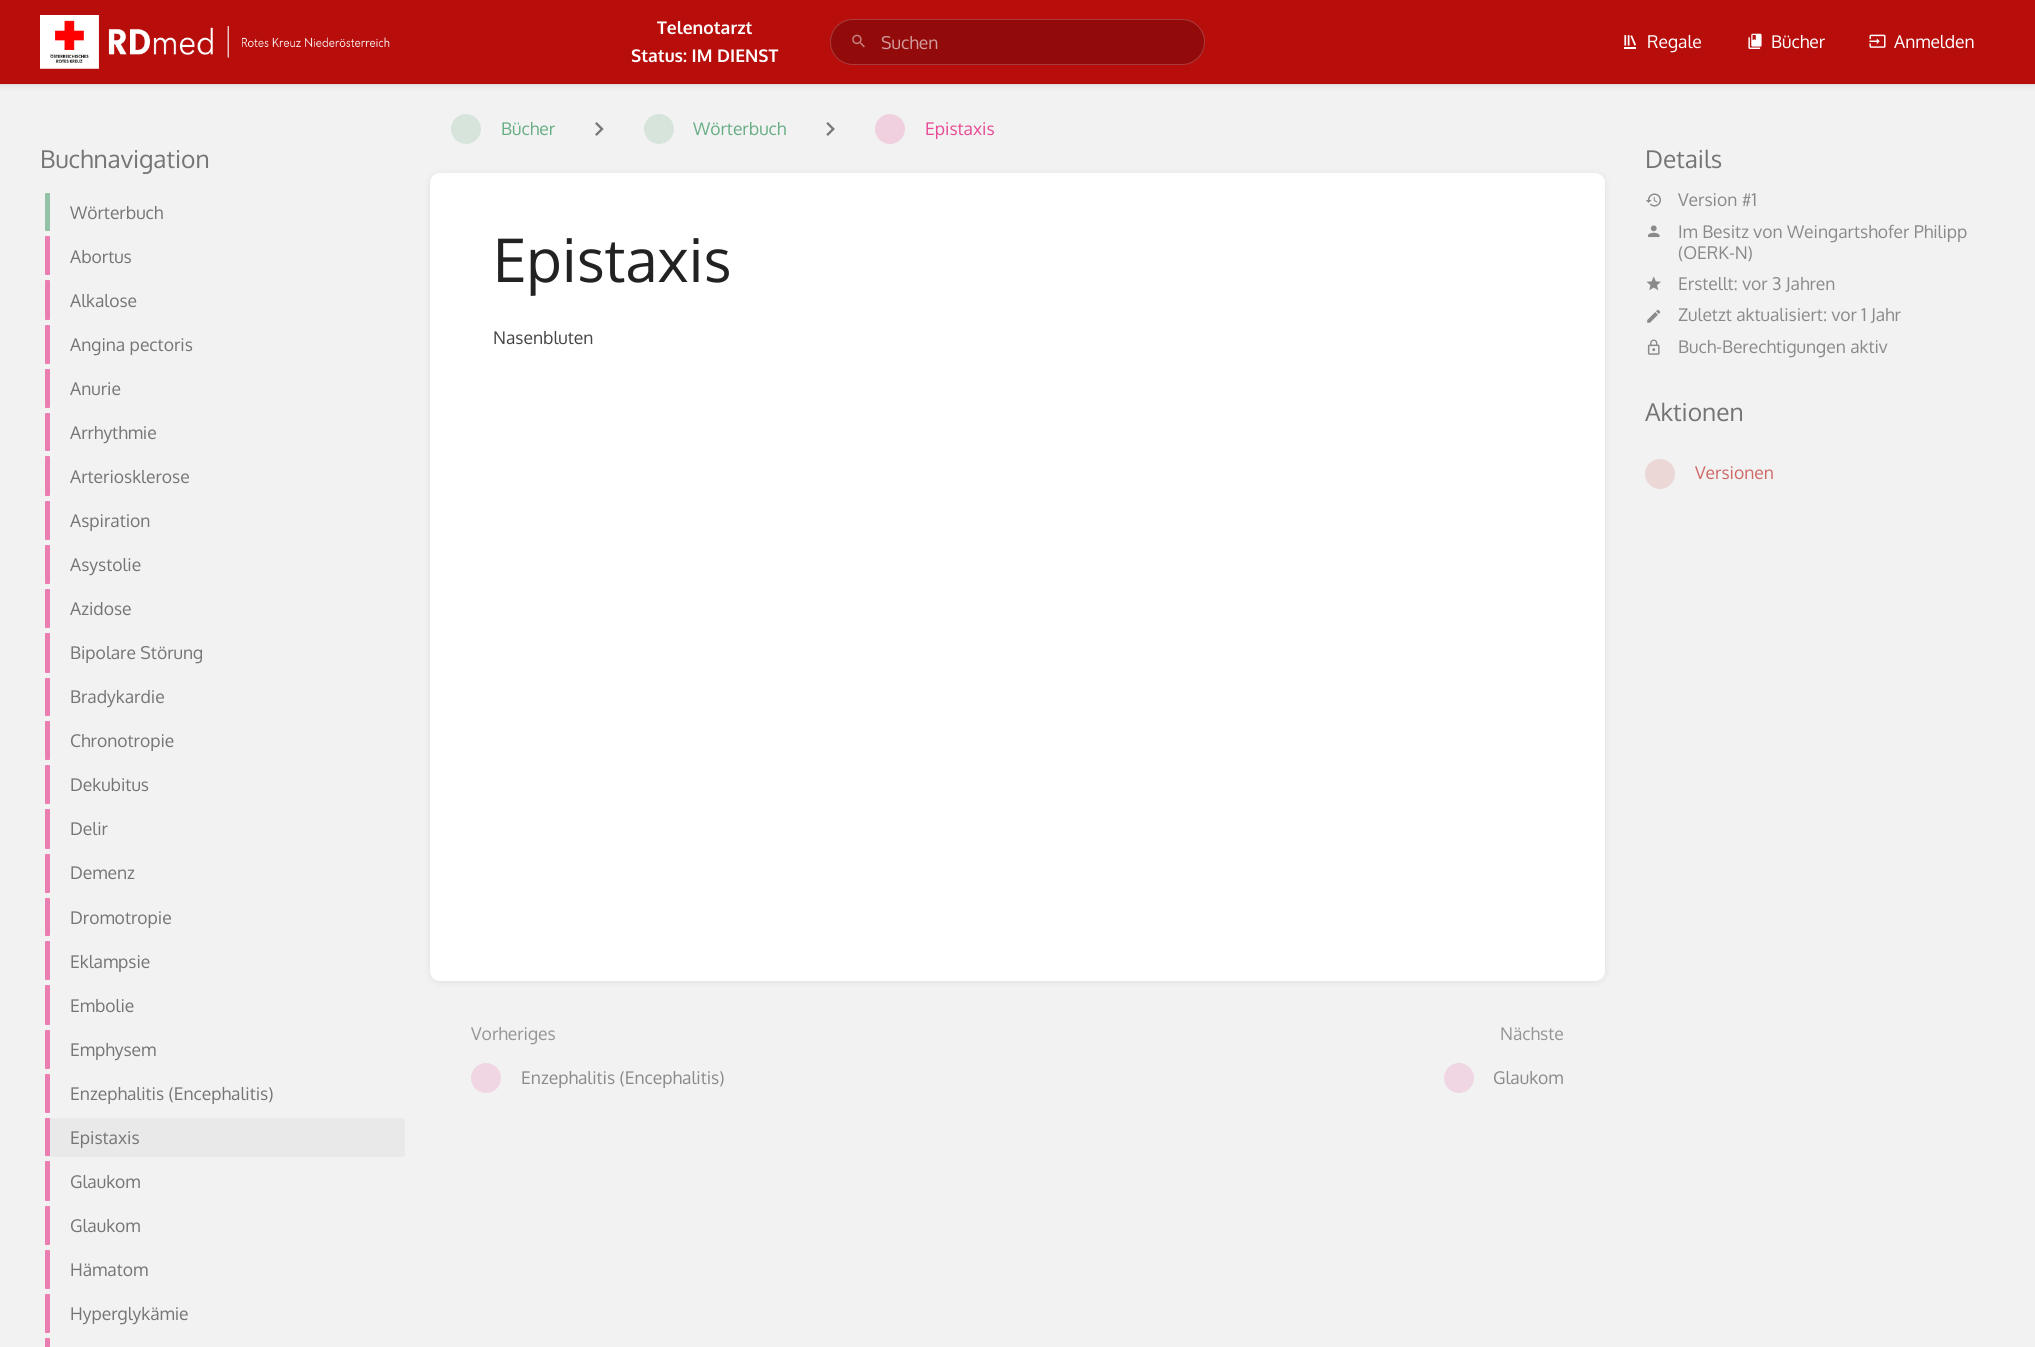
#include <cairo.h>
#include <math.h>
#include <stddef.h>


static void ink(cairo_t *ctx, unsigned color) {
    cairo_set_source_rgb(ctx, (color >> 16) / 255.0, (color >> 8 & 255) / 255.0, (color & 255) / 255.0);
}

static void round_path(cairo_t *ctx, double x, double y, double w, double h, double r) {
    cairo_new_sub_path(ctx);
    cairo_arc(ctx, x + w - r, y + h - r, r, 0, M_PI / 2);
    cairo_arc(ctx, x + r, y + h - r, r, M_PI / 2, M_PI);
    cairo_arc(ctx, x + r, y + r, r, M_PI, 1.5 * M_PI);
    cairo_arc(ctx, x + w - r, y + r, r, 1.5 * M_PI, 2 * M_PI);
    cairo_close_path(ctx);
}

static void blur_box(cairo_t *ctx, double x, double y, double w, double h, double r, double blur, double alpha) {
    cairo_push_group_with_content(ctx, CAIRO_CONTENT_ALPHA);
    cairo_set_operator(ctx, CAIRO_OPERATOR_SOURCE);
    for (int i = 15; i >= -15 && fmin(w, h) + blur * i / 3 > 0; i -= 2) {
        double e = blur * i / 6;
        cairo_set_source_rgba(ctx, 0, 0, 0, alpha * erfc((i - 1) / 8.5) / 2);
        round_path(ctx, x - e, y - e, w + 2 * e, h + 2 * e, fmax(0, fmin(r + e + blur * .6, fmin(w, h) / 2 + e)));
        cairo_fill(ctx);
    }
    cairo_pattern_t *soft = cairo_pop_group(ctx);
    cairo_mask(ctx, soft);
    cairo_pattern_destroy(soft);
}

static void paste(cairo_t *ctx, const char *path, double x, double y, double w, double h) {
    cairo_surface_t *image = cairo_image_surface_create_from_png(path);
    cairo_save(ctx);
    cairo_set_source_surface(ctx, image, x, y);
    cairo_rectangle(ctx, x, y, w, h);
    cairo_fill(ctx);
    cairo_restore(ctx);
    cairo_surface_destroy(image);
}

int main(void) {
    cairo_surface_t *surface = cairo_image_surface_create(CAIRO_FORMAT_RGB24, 2035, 1347);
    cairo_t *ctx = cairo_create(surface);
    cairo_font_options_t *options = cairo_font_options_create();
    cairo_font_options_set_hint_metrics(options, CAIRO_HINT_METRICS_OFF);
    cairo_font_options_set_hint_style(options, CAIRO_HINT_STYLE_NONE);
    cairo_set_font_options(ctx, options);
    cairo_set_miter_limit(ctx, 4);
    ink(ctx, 0xF2F2F2);
    cairo_paint(ctx);
    ink(ctx, 0x000000);
    blur_box(ctx, 1, 3, 2033, 82, 0, 4, 0.1);
    ink(ctx, 0xB70E0C);
    cairo_rectangle(ctx, 0, 0, 2035, 84);
    cairo_fill(ctx);
    ink(ctx, 0xDDDDDD);
    cairo_rectangle(ctx, 0, 84, 2035, 1);
    cairo_fill(ctx);
    paste(ctx, "media/1.png", 40, 15, 350, 54);
    cairo_select_font_face(ctx, "Oxygen", CAIRO_FONT_SLANT_NORMAL, CAIRO_FONT_WEIGHT_BOLD);
    cairo_set_font_size(ctx, 17.5);
    ink(ctx, 0xFFFFFF);
    cairo_move_to(ctx, 657, 34);
    cairo_show_text(ctx, "Telenotarzt");
    cairo_move_to(ctx, 631, 62);
    cairo_show_text(ctx, "Status: IM DIENST");
    ink(ctx, 0x920B0A);
    round_path(ctx, 830, 19, 375, 46, 23);
    cairo_fill(ctx);
    round_path(ctx, 830.5, 19.5, 374, 45, 22.5);
    cairo_set_source_rgba(ctx, 1, 1, 1, 0.2);
    cairo_set_line_width(ctx, 1);
    cairo_stroke(ctx);
    paste(ctx, "media/2.png", 852, 34, 13, 14);
    cairo_select_font_face(ctx, "Oxygen", CAIRO_FONT_SLANT_NORMAL, CAIRO_FONT_WEIGHT_NORMAL);
    ink(ctx, 0xD39D9D);
    cairo_move_to(ctx, 881, 49);
    cairo_show_text(ctx, "Suchen");
    paste(ctx, "media/3.png", 1624, 35, 12, 14);
    ink(ctx, 0xFFFFFF);
    cairo_move_to(ctx, 1647, 48);
    cairo_show_text(ctx, "Regale");
    paste(ctx, "media/4.png", 1748, 33, 14, 16);
    cairo_move_to(ctx, 1771, 48);
    cairo_show_text(ctx, "Bücher");
    paste(ctx, "media/5.png", 1869, 34, 17, 14);
    cairo_move_to(ctx, 1894, 48);
    cairo_show_text(ctx, "Anmelden");
    ink(ctx, 0xD6E4DC);
    cairo_new_path(ctx);
    cairo_arc(ctx, 466, 129, 15, 0, 2 * M_PI);
    cairo_fill(ctx);
    ink(ctx, 0x67AE84);
    cairo_move_to(ctx, 501, 135);
    cairo_show_text(ctx, "Bücher");
    paste(ctx, "media/6.png", 595, 122, 9, 14);
    ink(ctx, 0xD6E4DC);
    cairo_arc(ctx, 659, 129, 15, 0, 2 * M_PI);
    cairo_fill(ctx);
    ink(ctx, 0x67AE84);
    cairo_move_to(ctx, 693, 135);
    cairo_show_text(ctx, "Wörterbuch");
    paste(ctx, "media/7.png", 826, 122, 9, 14);
    ink(ctx, 0xF0D0DF);
    cairo_arc(ctx, 890, 129, 15, 0, 2 * M_PI);
    cairo_fill(ctx);
    ink(ctx, 0xE84993);
    cairo_move_to(ctx, 925, 135);
    cairo_show_text(ctx, "Epistaxis");
    ink(ctx, 0x000000);
    blur_box(ctx, 431, 175, 1173, 806, 9, 4, 0.1);
    ink(ctx, 0xFFFFFF);
    round_path(ctx, 430, 173, 1175, 808, 10);
    cairo_fill(ctx);
    cairo_set_font_size(ctx, 60);
    ink(ctx, 0x222222);
    cairo_move_to(ctx, 493, 282);
    cairo_show_text(ctx, "Epistaxis");
    cairo_set_font_size(ctx, 17.5);
    ink(ctx, 0x444444);
    cairo_move_to(ctx, 493, 344);
    cairo_show_text(ctx, "Nasenbluten");
    ink(ctx, 0x959595);
    cairo_move_to(ctx, 471, 1040);
    cairo_show_text(ctx, "Vorheriges");
    ink(ctx, 0xF0D5E2);
    cairo_new_path(ctx);
    cairo_arc(ctx, 486, 1078, 15, 0, 2 * M_PI);
    cairo_fill(ctx);
    ink(ctx, 0x8A8A8A);
    cairo_move_to(ctx, 521, 1084);
    cairo_show_text(ctx, "Enzephalitis (Encephalitis)");
    ink(ctx, 0x959595);
    cairo_move_to(ctx, 1500, 1040);
    cairo_show_text(ctx, "Nächste");
    ink(ctx, 0xF0D5E2);
    cairo_new_path(ctx);
    cairo_arc(ctx, 1459, 1078, 15, 0, 2 * M_PI);
    cairo_fill(ctx);
    ink(ctx, 0x8A8A8A);
    cairo_move_to(ctx, 1493, 1084);
    cairo_show_text(ctx, "Glaukom");
    cairo_set_font_size(ctx, 24.5);
    ink(ctx, 0x757575);
    cairo_move_to(ctx, 40, 168);
    cairo_show_text(ctx, "Buchnavigation");
    ink(ctx, 0x93C3A7);
    round_path(ctx, 45, 193, 5, 38, 1);
    cairo_fill(ctx);
    cairo_set_font_size(ctx, 17.5);
    ink(ctx, 0x757575);
    cairo_move_to(ctx, 70, 219);
    cairo_show_text(ctx, "Wörterbuch");
    ink(ctx, 0xEB7EB1);
    round_path(ctx, 45, 236, 5, 39, 1);
    cairo_fill(ctx);
    ink(ctx, 0x757575);
    cairo_move_to(ctx, 70, 263);
    cairo_show_text(ctx, "Abortus");
    ink(ctx, 0xEB7EB1);
    round_path(ctx, 45, 280, 5, 40, 1);
    cairo_fill(ctx);
    ink(ctx, 0x757575);
    cairo_move_to(ctx, 70, 307);
    cairo_show_text(ctx, "Alkalose");
    ink(ctx, 0xEB7EB1);
    round_path(ctx, 45, 325, 5, 39, 1);
    cairo_fill(ctx);
    ink(ctx, 0x757575);
    cairo_move_to(ctx, 70, 351);
    cairo_show_text(ctx, "Angina pectoris");
    ink(ctx, 0xEB7EB1);
    round_path(ctx, 45, 369, 5, 39, 1);
    cairo_fill(ctx);
    ink(ctx, 0x757575);
    cairo_move_to(ctx, 70, 395);
    cairo_show_text(ctx, "Anurie");
    ink(ctx, 0xEB7EB1);
    round_path(ctx, 45, 413, 5, 38, 1);
    cairo_fill(ctx);
    ink(ctx, 0x757575);
    cairo_move_to(ctx, 70, 439);
    cairo_show_text(ctx, "Arrhythmie");
    ink(ctx, 0xEB7EB1);
    round_path(ctx, 45, 456, 5, 40, 1);
    cairo_fill(ctx);
    ink(ctx, 0x757575);
    cairo_move_to(ctx, 70, 483);
    cairo_show_text(ctx, "Arteriosklerose");
    ink(ctx, 0xEB7EB1);
    round_path(ctx, 45, 501, 5, 39, 1);
    cairo_fill(ctx);
    ink(ctx, 0x757575);
    cairo_move_to(ctx, 70, 527);
    cairo_show_text(ctx, "Aspiration");
    ink(ctx, 0xEB7EB1);
    round_path(ctx, 45, 545, 5, 39, 1);
    cairo_fill(ctx);
    ink(ctx, 0x757575);
    cairo_move_to(ctx, 70, 571);
    cairo_show_text(ctx, "Asystolie");
    ink(ctx, 0xEB7EB1);
    round_path(ctx, 45, 589, 5, 39, 1);
    cairo_fill(ctx);
    ink(ctx, 0x757575);
    cairo_move_to(ctx, 70, 615);
    cairo_show_text(ctx, "Azidose");
    ink(ctx, 0xEB7EB1);
    round_path(ctx, 45, 633, 5, 40, 1);
    cairo_fill(ctx);
    ink(ctx, 0x757575);
    cairo_move_to(ctx, 70, 659);
    cairo_show_text(ctx, "Bipolare Störung");
    ink(ctx, 0xEB7EB1);
    round_path(ctx, 45, 678, 5, 38, 1);
    cairo_fill(ctx);
    ink(ctx, 0x757575);
    cairo_move_to(ctx, 70, 703);
    cairo_show_text(ctx, "Bradykardie");
    ink(ctx, 0xEB7EB1);
    round_path(ctx, 45, 721, 5, 39, 1);
    cairo_fill(ctx);
    ink(ctx, 0x757575);
    cairo_move_to(ctx, 70, 747);
    cairo_show_text(ctx, "Chronotropie");
    ink(ctx, 0xEB7EB1);
    round_path(ctx, 45, 765, 5, 39, 1);
    cairo_fill(ctx);
    ink(ctx, 0x757575);
    cairo_move_to(ctx, 70, 791);
    cairo_show_text(ctx, "Dekubitus");
    ink(ctx, 0xEB7EB1);
    round_path(ctx, 45, 809, 5, 40, 1);
    cairo_fill(ctx);
    ink(ctx, 0x757575);
    cairo_move_to(ctx, 70, 835);
    cairo_show_text(ctx, "Delir");
    ink(ctx, 0xEB7EB1);
    round_path(ctx, 45, 854, 5, 39, 1);
    cairo_fill(ctx);
    ink(ctx, 0x757575);
    cairo_move_to(ctx, 70, 879);
    cairo_show_text(ctx, "Demenz");
    ink(ctx, 0xEB7EB1);
    round_path(ctx, 45, 898, 5, 38, 1);
    cairo_fill(ctx);
    ink(ctx, 0x757575);
    cairo_move_to(ctx, 70, 924);
    cairo_show_text(ctx, "Dromotropie");
    ink(ctx, 0xEB7EB1);
    round_path(ctx, 45, 941, 5, 39, 1);
    cairo_fill(ctx);
    ink(ctx, 0x757575);
    cairo_move_to(ctx, 70, 968);
    cairo_show_text(ctx, "Eklampsie");
    ink(ctx, 0xEB7EB1);
    round_path(ctx, 45, 985, 5, 40, 1);
    cairo_fill(ctx);
    ink(ctx, 0x757575);
    cairo_move_to(ctx, 70, 1012);
    cairo_show_text(ctx, "Embolie");
    ink(ctx, 0xEB7EB1);
    round_path(ctx, 45, 1030, 5, 39, 1);
    cairo_fill(ctx);
    ink(ctx, 0x757575);
    cairo_move_to(ctx, 70, 1056);
    cairo_show_text(ctx, "Emphysem");
    ink(ctx, 0xEB7EB1);
    round_path(ctx, 45, 1074, 5, 39, 1);
    cairo_fill(ctx);
    ink(ctx, 0x757575);
    cairo_move_to(ctx, 70, 1100);
    cairo_show_text(ctx, "Enzephalitis (Encephalitis)");
    ink(ctx, 0xE9E9E9);
    cairo_new_path(ctx);
    cairo_move_to(ctx, 45, 1118);
    cairo_line_to(ctx, 401, 1118);
    cairo_curve_to(ctx, 403, 1118, 405, 1118, 405, 1119);
    cairo_line_to(ctx, 405, 1155);
    cairo_curve_to(ctx, 405, 1156, 403, 1157, 401, 1157);
    cairo_line_to(ctx, 45, 1157);
    cairo_close_path(ctx);
    cairo_fill(ctx);
    ink(ctx, 0xEB7EB1);
    round_path(ctx, 45, 1118, 5, 38, 1);
    cairo_fill(ctx);
    ink(ctx, 0x757575);
    cairo_move_to(ctx, 70, 1144);
    cairo_show_text(ctx, "Epistaxis");
    ink(ctx, 0xEB7EB1);
    round_path(ctx, 45, 1161, 5, 40, 1);
    cairo_fill(ctx);
    ink(ctx, 0x757575);
    cairo_move_to(ctx, 70, 1188);
    cairo_show_text(ctx, "Glaukom");
    ink(ctx, 0xEB7EB1);
    round_path(ctx, 45, 1206, 5, 39, 1);
    cairo_fill(ctx);
    ink(ctx, 0x757575);
    cairo_move_to(ctx, 70, 1232);
    cairo_show_text(ctx, "Glaukom");
    ink(ctx, 0xEB7EB1);
    round_path(ctx, 45, 1250, 5, 39, 1);
    cairo_fill(ctx);
    ink(ctx, 0x757575);
    cairo_move_to(ctx, 70, 1276);
    cairo_show_text(ctx, "Hämatom");
    ink(ctx, 0xEB7EB1);
    round_path(ctx, 45, 1294, 5, 39, 1);
    cairo_fill(ctx);
    ink(ctx, 0x757575);
    cairo_move_to(ctx, 70, 1320);
    cairo_show_text(ctx, "Hyperglykämie");
    ink(ctx, 0xEB7EB1);
    round_path(ctx, 45, 1338, 5, 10, 1);
    cairo_fill(ctx);
    cairo_set_font_size(ctx, 24.5);
    ink(ctx, 0x757575);
    cairo_move_to(ctx, 1645, 168);
    cairo_show_text(ctx, "Details");
    paste(ctx, "media/8.png", 1646, 193, 15, 14);
    cairo_set_font_size(ctx, 17.5);
    ink(ctx, 0x8A8A8A);
    cairo_move_to(ctx, 1678, 206);
    cairo_show_text(ctx, "Version #1");
    paste(ctx, "media/9.png", 1647, 225, 13, 13);
    cairo_move_to(ctx, 1678, 238);
    cairo_show_text(ctx, "Im Besitz von Weingartshofer Philipp");
    cairo_move_to(ctx, 1678, 259);
    cairo_show_text(ctx, "(OERK-N)");
    paste(ctx, "media/10.png", 1646, 276, 15, 15);
    cairo_move_to(ctx, 1678, 290);
    cairo_show_text(ctx, "Erstellt: vor 3 Jahren");
    paste(ctx, "media/11.png", 1647, 309, 14, 14);
    cairo_move_to(ctx, 1678, 321);
    cairo_show_text(ctx, "Zuletzt aktualisiert: vor 1 Jahr");
    paste(ctx, "media/12.png", 1647, 339, 13, 16);
    cairo_move_to(ctx, 1678, 353);
    cairo_show_text(ctx, "Buch-Berechtigungen aktiv");
    cairo_set_font_size(ctx, 24.5);
    ink(ctx, 0x757575);
    cairo_move_to(ctx, 1645, 421);
    cairo_show_text(ctx, "Aktionen");
    ink(ctx, 0xEBD7D6);
    cairo_new_path(ctx);
    cairo_arc(ctx, 1660, 474, 15, 0, 2 * M_PI);
    cairo_fill(ctx);
    cairo_set_font_size(ctx, 17.5);
    ink(ctx, 0xCF6968);
    cairo_move_to(ctx, 1695, 479);
    cairo_show_text(ctx, "Versionen");
    cairo_surface_write_to_png(surface, "image.png");
    cairo_font_options_destroy(options);
    cairo_destroy(ctx);
    cairo_surface_destroy(surface);
    return 0;
}
